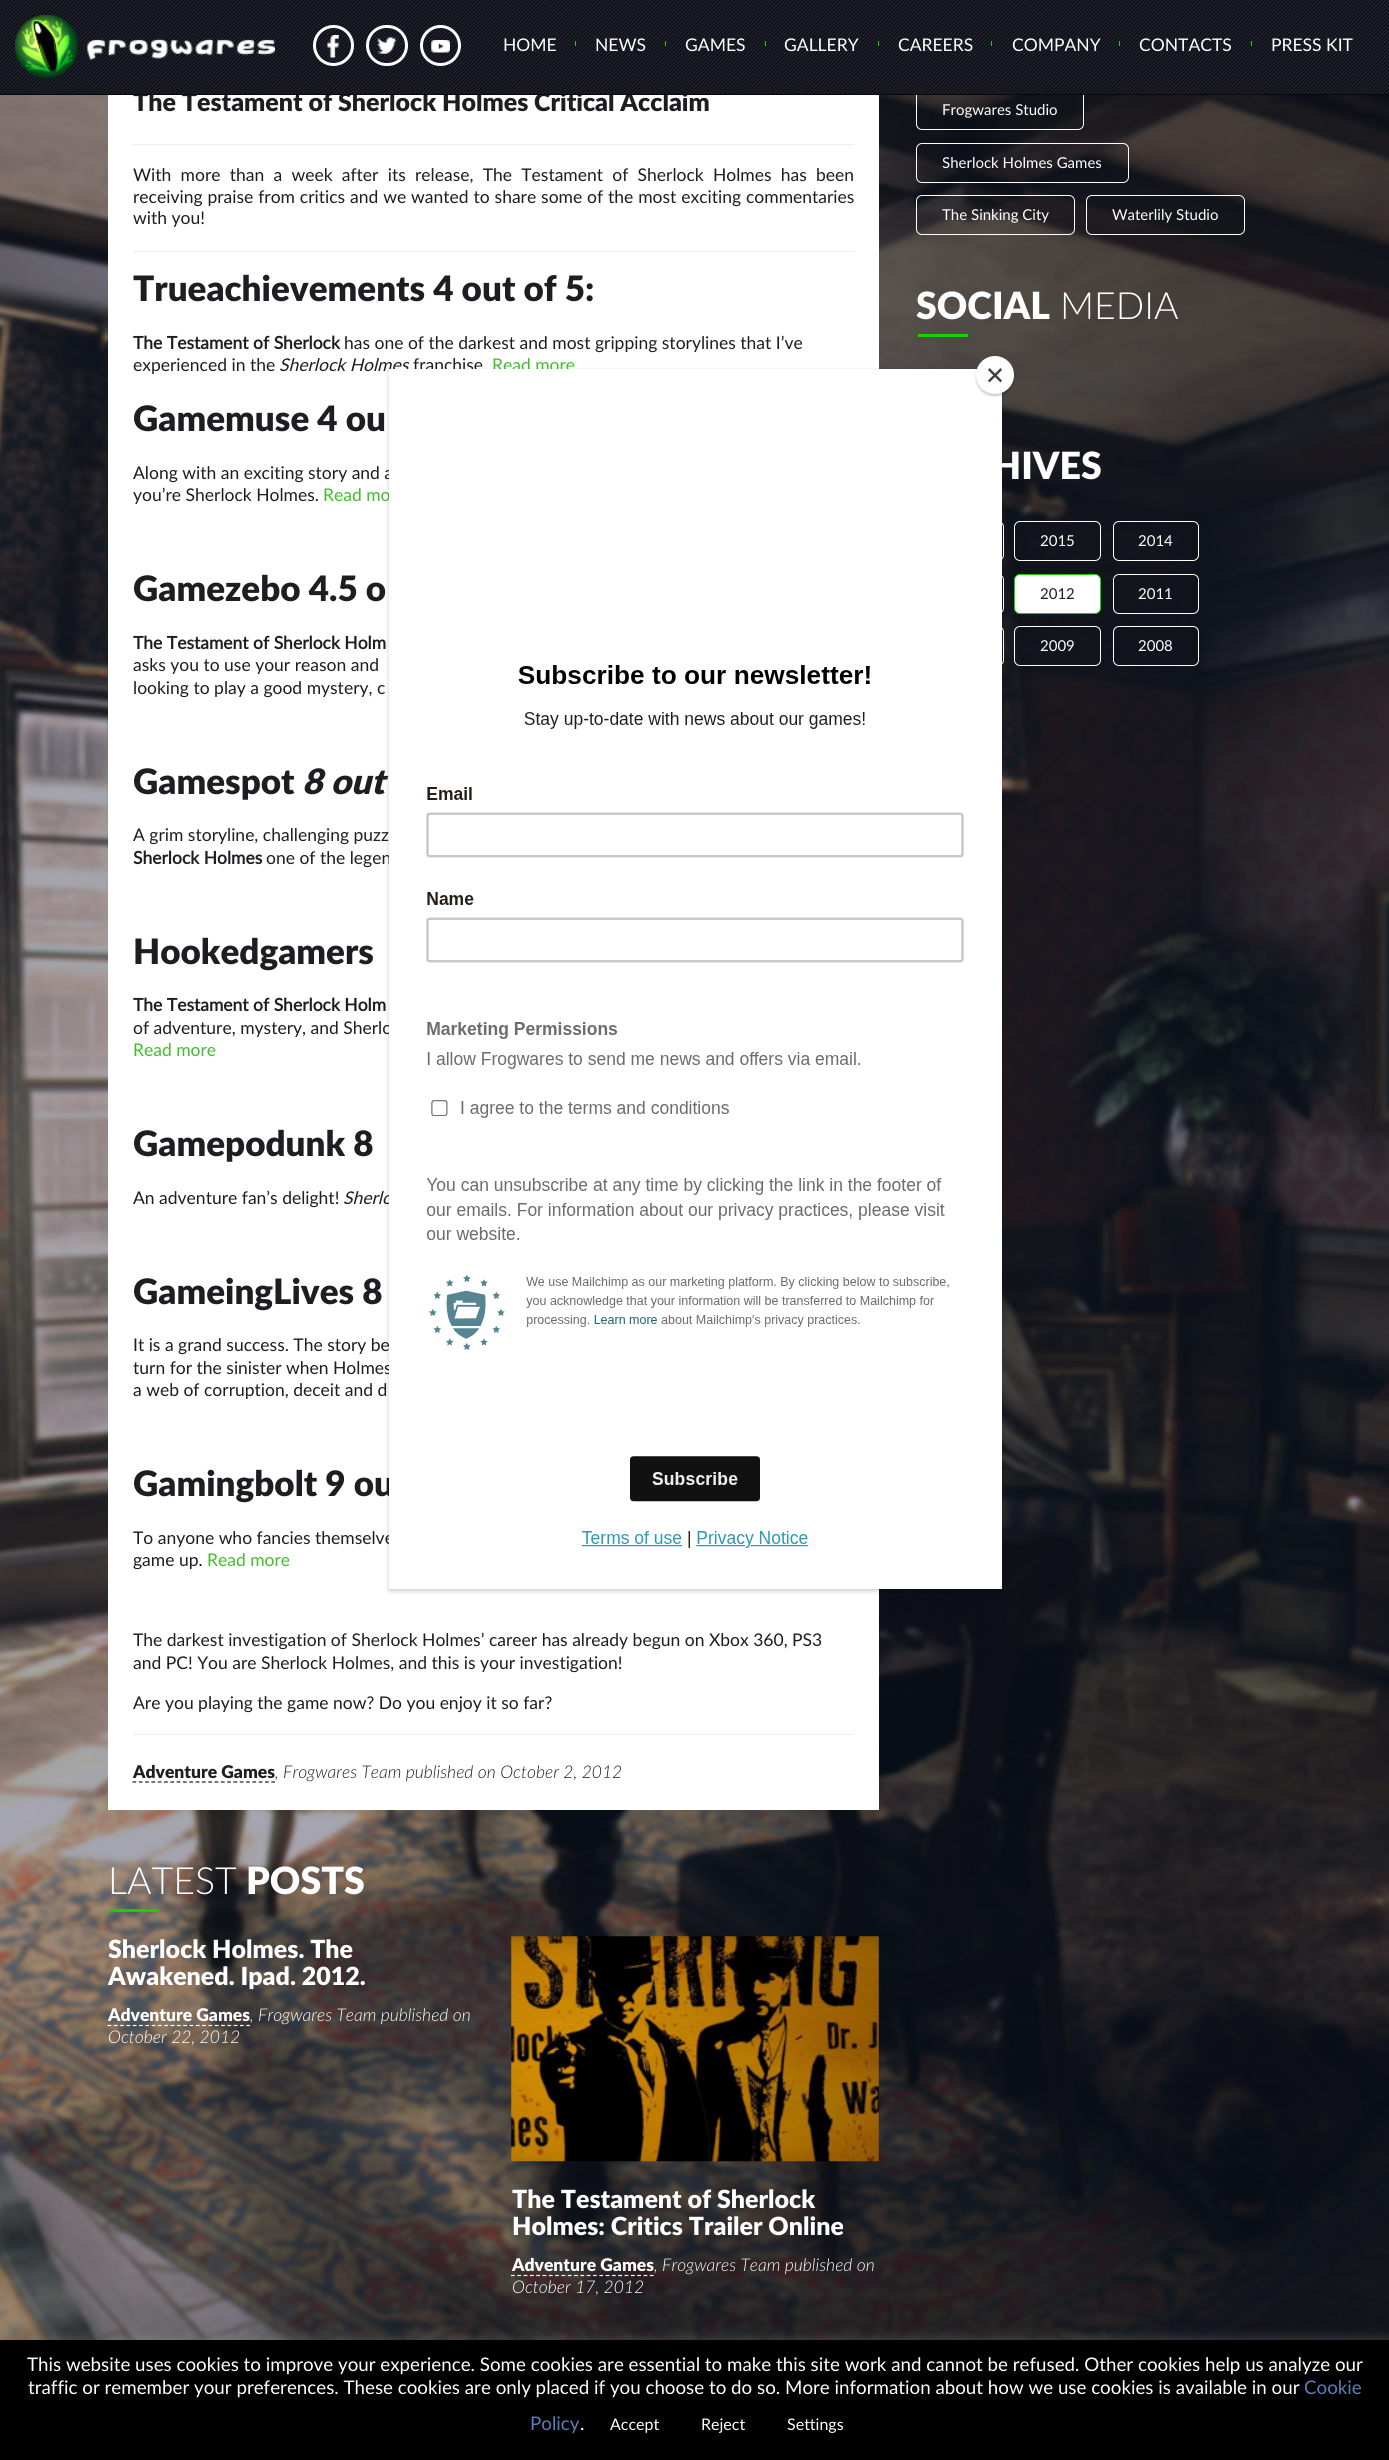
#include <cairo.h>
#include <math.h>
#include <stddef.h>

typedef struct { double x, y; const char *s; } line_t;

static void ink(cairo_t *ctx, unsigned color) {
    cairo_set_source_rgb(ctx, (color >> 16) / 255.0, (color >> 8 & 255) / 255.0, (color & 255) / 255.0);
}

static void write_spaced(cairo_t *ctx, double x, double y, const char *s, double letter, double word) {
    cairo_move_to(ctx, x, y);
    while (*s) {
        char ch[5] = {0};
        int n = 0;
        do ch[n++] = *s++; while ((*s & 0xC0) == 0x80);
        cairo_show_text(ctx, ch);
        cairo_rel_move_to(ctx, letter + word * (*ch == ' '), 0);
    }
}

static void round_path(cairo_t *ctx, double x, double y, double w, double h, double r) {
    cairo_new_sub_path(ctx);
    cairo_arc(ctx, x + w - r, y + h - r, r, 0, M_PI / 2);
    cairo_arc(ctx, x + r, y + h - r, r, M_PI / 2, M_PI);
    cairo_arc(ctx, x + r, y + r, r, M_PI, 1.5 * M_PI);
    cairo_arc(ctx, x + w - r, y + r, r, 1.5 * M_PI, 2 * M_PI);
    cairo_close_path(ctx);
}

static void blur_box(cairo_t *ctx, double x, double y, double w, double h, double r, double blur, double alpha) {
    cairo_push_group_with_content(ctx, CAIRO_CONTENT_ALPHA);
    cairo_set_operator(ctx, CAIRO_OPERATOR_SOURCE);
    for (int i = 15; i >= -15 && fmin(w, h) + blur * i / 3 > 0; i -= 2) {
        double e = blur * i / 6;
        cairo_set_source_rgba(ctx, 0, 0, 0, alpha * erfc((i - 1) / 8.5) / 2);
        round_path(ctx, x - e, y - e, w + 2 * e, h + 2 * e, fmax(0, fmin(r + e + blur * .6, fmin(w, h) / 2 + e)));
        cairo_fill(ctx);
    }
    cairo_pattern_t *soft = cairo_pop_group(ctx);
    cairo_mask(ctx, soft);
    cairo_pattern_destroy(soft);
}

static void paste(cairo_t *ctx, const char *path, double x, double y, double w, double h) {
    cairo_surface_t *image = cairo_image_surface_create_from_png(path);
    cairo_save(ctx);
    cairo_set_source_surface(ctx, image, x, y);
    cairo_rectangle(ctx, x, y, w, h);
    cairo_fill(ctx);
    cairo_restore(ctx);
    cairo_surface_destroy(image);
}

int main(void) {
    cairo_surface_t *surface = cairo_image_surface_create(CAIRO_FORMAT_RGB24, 1389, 2460);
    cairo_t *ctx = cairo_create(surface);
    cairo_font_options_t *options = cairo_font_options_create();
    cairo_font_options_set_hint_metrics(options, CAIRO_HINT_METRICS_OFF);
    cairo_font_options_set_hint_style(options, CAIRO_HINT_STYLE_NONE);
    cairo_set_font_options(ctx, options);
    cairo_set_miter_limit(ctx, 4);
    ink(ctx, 0xFFFFFF);
    cairo_paint(ctx);
    paste(ctx, "media/6.png", 0, 95, 1389, 2245);
    ink(ctx, 0xFFFFFF);
    cairo_rectangle(ctx, 108, 95, 771, 1715);
    cairo_fill(ctx);
    cairo_select_font_face(ctx, "Lato Black", CAIRO_FONT_SLANT_NORMAL, CAIRO_FONT_WEIGHT_NORMAL);
    cairo_set_font_size(ctx, 25);
    ink(ctx, 0x1D1D22);
    cairo_move_to(ctx, 133, 111);
    cairo_show_text(ctx, "The Testament of Sherlock Holmes Critical Acclaim");
    round_path(ctx, 916.5, 90.5, 167, 39, 5.5);
    ink(ctx, 0xFFFFFF);
    cairo_set_line_width(ctx, 1);
    cairo_stroke(ctx);
    paste(ctx, "media/1.png", 0, 0, 1389, 94);
    ink(ctx, 0x080808);
    cairo_rectangle(ctx, 0, 94, 1389, 1);
    cairo_fill(ctx);
    paste(ctx, "media/2.png", 15, 15, 260, 63);
    paste(ctx, "media/3.png", 327, 35, 12, 23);
    cairo_arc(ctx, 333.5, 45.5, 19, 0, 2 * M_PI);
    ink(ctx, 0xFFFFFF);
    cairo_set_line_width(ctx, 3);
    cairo_stroke(ctx);
    paste(ctx, "media/4.png", 377, 37, 20, 17);
    round_path(ctx, 367.5, 26.5, 39, 38, 19);
    cairo_stroke(ctx);
    paste(ctx, "media/5.png", 431, 40, 19, 13);
    cairo_arc(ctx, 440.5, 45.5, 19, 0, 2 * M_PI);
    cairo_stroke(ctx);
    cairo_select_font_face(ctx, "Lato", CAIRO_FONT_SLANT_NORMAL, CAIRO_FONT_WEIGHT_NORMAL);
    cairo_set_font_size(ctx, 17.5);
    cairo_move_to(ctx, 503, 51);
    cairo_show_text(ctx, "HOME");
    ink(ctx, 0x1ECF00);
    cairo_rectangle(ctx, 575, 41, 1, 5);
    cairo_fill(ctx);
    ink(ctx, 0xFFFFFF);
    cairo_move_to(ctx, 595, 51);
    cairo_show_text(ctx, "NEWS");
    ink(ctx, 0x1ECF00);
    cairo_rectangle(ctx, 665, 41, 1, 5);
    cairo_fill(ctx);
    ink(ctx, 0xFFFFFF);
    cairo_move_to(ctx, 685, 51);
    cairo_show_text(ctx, "GAMES");
    ink(ctx, 0x1ECF00);
    cairo_rectangle(ctx, 765, 41, 1, 5);
    cairo_fill(ctx);
    ink(ctx, 0xFFFFFF);
    cairo_move_to(ctx, 784, 51);
    cairo_show_text(ctx, "GALLERY");
    ink(ctx, 0x1ECF00);
    cairo_rectangle(ctx, 878, 41, 1, 5);
    cairo_fill(ctx);
    ink(ctx, 0xFFFFFF);
    cairo_move_to(ctx, 898, 51);
    cairo_show_text(ctx, "CAREERS");
    ink(ctx, 0x1ECF00);
    cairo_rectangle(ctx, 991, 41, 1, 5);
    cairo_fill(ctx);
    ink(ctx, 0xFFFFFF);
    cairo_move_to(ctx, 1012, 51);
    cairo_show_text(ctx, "COMPANY");
    ink(ctx, 0x1ECF00);
    cairo_rectangle(ctx, 1119, 41, 1, 5);
    cairo_fill(ctx);
    ink(ctx, 0xFFFFFF);
    cairo_move_to(ctx, 1139, 51);
    cairo_show_text(ctx, "CONTACTS");
    ink(ctx, 0x1ECF00);
    cairo_rectangle(ctx, 1251, 41, 1, 5);
    cairo_fill(ctx);
    ink(ctx, 0xFFFFFF);
    cairo_move_to(ctx, 1271, 51);
    cairo_show_text(ctx, "PRESS KIT");
    ink(ctx, 0xEEEEEE);
    cairo_rectangle(ctx, 133, 144, 721, 1);
    cairo_fill(ctx);
    cairo_rectangle(ctx, 133, 251, 721, 1);
    cairo_fill(ctx);
    ink(ctx, 0x1D1D22);
    write_spaced(ctx, 133, 181, "With more than a week after its release, The Testament of Sherlock Holmes has been", 0, 4.75);
    write_spaced(ctx, 133, 203, "receiving praise from critics and we wanted to share some of the most exciting commentaries", 0, 0.4);
    cairo_move_to(ctx, 133, 224);
    cairo_show_text(ctx, "with you!");
    cairo_select_font_face(ctx, "Lato Black", CAIRO_FONT_SLANT_NORMAL, CAIRO_FONT_WEIGHT_NORMAL);
    cairo_set_font_size(ctx, 35);
    cairo_move_to(ctx, 133, 301);
    cairo_show_text(ctx, "Trueachievements 4 out of 5:");
    cairo_select_font_face(ctx, "Lato", CAIRO_FONT_SLANT_NORMAL, CAIRO_FONT_WEIGHT_BOLD);
    cairo_set_font_size(ctx, 17.5);
    cairo_move_to(ctx, 133, 349);
    cairo_show_text(ctx, "The Testament of Sherlock");
    cairo_select_font_face(ctx, "Lato", CAIRO_FONT_SLANT_NORMAL, CAIRO_FONT_WEIGHT_NORMAL);
    cairo_move_to(ctx, 344, 349);
    cairo_show_text(ctx, "has one of the darkest and most gripping storylines that I’ve");
    cairo_move_to(ctx, 133, 371);
    cairo_show_text(ctx, "experienced in the");
    cairo_select_font_face(ctx, "Lato", CAIRO_FONT_SLANT_ITALIC, CAIRO_FONT_WEIGHT_NORMAL);
    cairo_move_to(ctx, 279, 371);
    cairo_show_text(ctx, "Sherlock Holmes");
    cairo_select_font_face(ctx, "Lato", CAIRO_FONT_SLANT_NORMAL, CAIRO_FONT_WEIGHT_NORMAL);
    cairo_move_to(ctx, 413, 371);
    cairo_show_text(ctx, "franchise");
    ink(ctx, 0x42BD2D);
    cairo_move_to(ctx, 492, 371);
    cairo_show_text(ctx, "Read more");
    cairo_select_font_face(ctx, "Lato Black", CAIRO_FONT_SLANT_NORMAL, CAIRO_FONT_WEIGHT_NORMAL);
    cairo_set_font_size(ctx, 35);
    ink(ctx, 0x1D1D22);
    cairo_move_to(ctx, 133, 431);
    cairo_show_text(ctx, "Gamemuse 4 ou");
    cairo_select_font_face(ctx, "Lato", CAIRO_FONT_SLANT_NORMAL, CAIRO_FONT_WEIGHT_NORMAL);
    cairo_set_font_size(ctx, 17.5);
    cairo_move_to(ctx, 133, 479);
    cairo_show_text(ctx, "Along with an exciting story and a");
    cairo_move_to(ctx, 133, 501);
    cairo_show_text(ctx, "you’re Sherlock Holmes.");
    ink(ctx, 0x42BD2D);
    cairo_move_to(ctx, 323, 501);
    cairo_show_text(ctx, "Read mo");
    cairo_select_font_face(ctx, "Lato Black", CAIRO_FONT_SLANT_NORMAL, CAIRO_FONT_WEIGHT_NORMAL);
    cairo_set_font_size(ctx, 35);
    ink(ctx, 0x1D1D22);
    cairo_move_to(ctx, 133, 601);
    cairo_show_text(ctx, "Gamezebo 4.5 o");
    cairo_select_font_face(ctx, "Lato", CAIRO_FONT_SLANT_NORMAL, CAIRO_FONT_WEIGHT_BOLD);
    cairo_set_font_size(ctx, 17.5);
    cairo_move_to(ctx, 133, 649);
    cairo_show_text(ctx, "The Testament of Sherlock Holm");
    cairo_select_font_face(ctx, "Lato", CAIRO_FONT_SLANT_NORMAL, CAIRO_FONT_WEIGHT_NORMAL);
    cairo_move_to(ctx, 133, 671);
    cairo_show_text(ctx, "asks you to use your reason and");
    cairo_move_to(ctx, 133, 694);
    cairo_show_text(ctx, "looking to play a good mystery, c");
    cairo_select_font_face(ctx, "Lato Black", CAIRO_FONT_SLANT_NORMAL, CAIRO_FONT_WEIGHT_NORMAL);
    cairo_set_font_size(ctx, 35);
    cairo_move_to(ctx, 133, 794);
    cairo_show_text(ctx, "Gamespot");
    cairo_select_font_face(ctx, "Lato Black", CAIRO_FONT_SLANT_ITALIC, CAIRO_FONT_WEIGHT_NORMAL);
    cairo_move_to(ctx, 302, 794);
    cairo_show_text(ctx, "8 out");
    cairo_select_font_face(ctx, "Lato", CAIRO_FONT_SLANT_NORMAL, CAIRO_FONT_WEIGHT_NORMAL);
    cairo_set_font_size(ctx, 17.5);
    cairo_move_to(ctx, 133, 841);
    cairo_show_text(ctx, "A grim storyline, challenging puzz");
    cairo_select_font_face(ctx, "Lato", CAIRO_FONT_SLANT_NORMAL, CAIRO_FONT_WEIGHT_BOLD);
    cairo_move_to(ctx, 133, 864);
    cairo_show_text(ctx, "Sherlock Holmes");
    cairo_select_font_face(ctx, "Lato", CAIRO_FONT_SLANT_NORMAL, CAIRO_FONT_WEIGHT_NORMAL);
    cairo_move_to(ctx, 266, 864);
    cairo_show_text(ctx, "one of the legen");
    cairo_select_font_face(ctx, "Lato Black", CAIRO_FONT_SLANT_NORMAL, CAIRO_FONT_WEIGHT_NORMAL);
    cairo_set_font_size(ctx, 35);
    cairo_move_to(ctx, 133, 964);
    cairo_show_text(ctx, "Hookedgamers");
    cairo_select_font_face(ctx, "Lato", CAIRO_FONT_SLANT_NORMAL, CAIRO_FONT_WEIGHT_BOLD);
    cairo_set_font_size(ctx, 17.5);
    cairo_move_to(ctx, 133, 1011);
    cairo_show_text(ctx, "The Testament of Sherlock Holm");
    cairo_select_font_face(ctx, "Lato", CAIRO_FONT_SLANT_NORMAL, CAIRO_FONT_WEIGHT_NORMAL);
    cairo_move_to(ctx, 133, 1034);
    cairo_show_text(ctx, "of adventure, mystery, and Sherlo");
    ink(ctx, 0x42BD2D);
    cairo_move_to(ctx, 133, 1056);
    cairo_show_text(ctx, "Read more");
    cairo_select_font_face(ctx, "Lato Black", CAIRO_FONT_SLANT_NORMAL, CAIRO_FONT_WEIGHT_NORMAL);
    cairo_set_font_size(ctx, 35);
    ink(ctx, 0x1D1D22);
    cairo_move_to(ctx, 133, 1156);
    cairo_show_text(ctx, "Gamepodunk 8");
    cairo_select_font_face(ctx, "Lato", CAIRO_FONT_SLANT_NORMAL, CAIRO_FONT_WEIGHT_NORMAL);
    cairo_set_font_size(ctx, 17.5);
    cairo_move_to(ctx, 133, 1204);
    cairo_show_text(ctx, "An adventure fan’s delight!");
    cairo_select_font_face(ctx, "Lato", CAIRO_FONT_SLANT_ITALIC, CAIRO_FONT_WEIGHT_NORMAL);
    cairo_move_to(ctx, 343, 1204);
    cairo_show_text(ctx, "Sherlo");
    cairo_select_font_face(ctx, "Lato Black", CAIRO_FONT_SLANT_NORMAL, CAIRO_FONT_WEIGHT_NORMAL);
    cairo_set_font_size(ctx, 35);
    cairo_move_to(ctx, 133, 1304);
    cairo_show_text(ctx, "GameingLives 8");
    cairo_select_font_face(ctx, "Lato", CAIRO_FONT_SLANT_NORMAL, CAIRO_FONT_WEIGHT_NORMAL);
    cairo_set_font_size(ctx, 17.5);
    {
        static const line_t items[] = {
            {133, 1351, "It is a grand success. The story be"},
            {133, 1374, "turn for the sinister when Holmes"},
            {133, 1396, "a web of corruption, deceit and d"},
        };
        for (size_t i = 0; i < sizeof items / sizeof *items; i++) {
            cairo_move_to(ctx, items[i].x, items[i].y);
            cairo_show_text(ctx, items[i].s);
        }
    }
    cairo_select_font_face(ctx, "Lato Black", CAIRO_FONT_SLANT_NORMAL, CAIRO_FONT_WEIGHT_NORMAL);
    cairo_set_font_size(ctx, 35);
    cairo_move_to(ctx, 133, 1496);
    cairo_show_text(ctx, "Gamingbolt 9 ou");
    cairo_select_font_face(ctx, "Lato", CAIRO_FONT_SLANT_NORMAL, CAIRO_FONT_WEIGHT_NORMAL);
    cairo_set_font_size(ctx, 17.5);
    cairo_move_to(ctx, 133, 1544);
    cairo_show_text(ctx, "To anyone who fancies themselve");
    cairo_move_to(ctx, 133, 1566);
    cairo_show_text(ctx, "game up.");
    ink(ctx, 0x42BD2D);
    cairo_move_to(ctx, 207, 1566);
    cairo_show_text(ctx, "Read more");
    ink(ctx, 0x1D1D22);
    {
        static const line_t items[] = {
            {133, 1646, "The darkest investigation of Sherlock Holmes’ career has already begun on Xbox 360, PS3"},
            {133, 1669, "and PC! You are Sherlock Holmes, and this is your investigation!"},
            {133, 1709, "Are you playing the game now? Do you enjoy it so far?"},
        };
        for (size_t i = 0; i < sizeof items / sizeof *items; i++) {
            cairo_move_to(ctx, items[i].x, items[i].y);
            cairo_show_text(ctx, items[i].s);
        }
    }
    ink(ctx, 0xEEEEEE);
    cairo_rectangle(ctx, 133, 1734, 721, 1);
    cairo_fill(ctx);
    cairo_select_font_face(ctx, "Lato Black", CAIRO_FONT_SLANT_NORMAL, CAIRO_FONT_WEIGHT_NORMAL);
    ink(ctx, 0x1D1D22);
    cairo_move_to(ctx, 133, 1778);
    cairo_show_text(ctx, "Adventure Games");
    cairo_select_font_face(ctx, "Lato Light", CAIRO_FONT_SLANT_ITALIC, CAIRO_FONT_WEIGHT_NORMAL);
    cairo_move_to(ctx, 275, 1778);
    cairo_show_text(ctx, ", Frogwares Team published on October 2, 2012");
    cairo_new_path(ctx);
    cairo_move_to(ctx, 132.5, 1782);
    cairo_line_to(ctx, 275, 1782);
    cairo_set_line_width(ctx, 1.2);
    cairo_set_dash(ctx, (double[]){3.75, 2.56}, 2, 0);
    cairo_stroke(ctx);
    cairo_select_font_face(ctx, "Lato Light", CAIRO_FONT_SLANT_NORMAL, CAIRO_FONT_WEIGHT_NORMAL);
    cairo_set_font_size(ctx, 37.5);
    ink(ctx, 0xFFFFFF);
    cairo_move_to(ctx, 108, 1894);
    cairo_show_text(ctx, "LATEST");
    cairo_select_font_face(ctx, "Lato Black", CAIRO_FONT_SLANT_NORMAL, CAIRO_FONT_WEIGHT_NORMAL);
    cairo_move_to(ctx, 246, 1894);
    cairo_show_text(ctx, "POSTS");
    ink(ctx, 0x1ECF00);
    cairo_rectangle(ctx, 109, 1909, 50, 3);
    cairo_fill(ctx);
    cairo_set_font_size(ctx, 25);
    ink(ctx, 0xFFFFFF);
    cairo_move_to(ctx, 108, 1958);
    cairo_show_text(ctx, "Sherlock Holmes. The");
    cairo_move_to(ctx, 108, 1985);
    cairo_show_text(ctx, "Awakened. Ipad. 2012.");
    cairo_set_font_size(ctx, 17.5);
    cairo_move_to(ctx, 108, 2021);
    cairo_show_text(ctx, "Adventure Games");
    cairo_select_font_face(ctx, "Lato Light", CAIRO_FONT_SLANT_ITALIC, CAIRO_FONT_WEIGHT_NORMAL);
    cairo_move_to(ctx, 250, 2021);
    cairo_show_text(ctx, ", Frogwares Team published on");
    cairo_new_path(ctx);
    cairo_move_to(ctx, 107.5, 2025.5);
    cairo_line_to(ctx, 250, 2025.5);
    cairo_stroke(ctx);
    cairo_move_to(ctx, 108, 2043);
    cairo_show_text(ctx, "October 22, 2012");
    paste(ctx, "media/7.png", 511, 1936, 368, 226);
    cairo_select_font_face(ctx, "Lato Black", CAIRO_FONT_SLANT_NORMAL, CAIRO_FONT_WEIGHT_NORMAL);
    cairo_set_font_size(ctx, 25);
    cairo_move_to(ctx, 512, 2208);
    cairo_show_text(ctx, "The Testament of Sherlock");
    cairo_move_to(ctx, 512, 2235);
    cairo_show_text(ctx, "Holmes: Critics Trailer Online");
    cairo_set_font_size(ctx, 17.5);
    cairo_move_to(ctx, 512, 2271);
    cairo_show_text(ctx, "Adventure Games");
    cairo_select_font_face(ctx, "Lato Light", CAIRO_FONT_SLANT_ITALIC, CAIRO_FONT_WEIGHT_NORMAL);
    cairo_move_to(ctx, 654, 2271);
    cairo_show_text(ctx, ", Frogwares Team published on");
    cairo_new_path(ctx);
    cairo_move_to(ctx, 511, 2275.5);
    cairo_line_to(ctx, 654, 2275.5);
    cairo_stroke(ctx);
    cairo_move_to(ctx, 512, 2293);
    cairo_show_text(ctx, "October 17, 2012");
    cairo_select_font_face(ctx, "Lato", CAIRO_FONT_SLANT_NORMAL, CAIRO_FONT_WEIGHT_NORMAL);
    cairo_set_font_size(ctx, 15);
    cairo_move_to(ctx, 942, 115);
    cairo_show_text(ctx, "Frogwares Studio");
    round_path(ctx, 916.5, 143.5, 212, 39, 5.5);
    cairo_set_line_width(ctx, 1);
    cairo_set_dash(ctx, NULL, 0, 0);
    cairo_stroke(ctx);
    cairo_move_to(ctx, 942, 168);
    cairo_show_text(ctx, "Sherlock Holmes Games");
    round_path(ctx, 916.5, 195.5, 158, 39, 5.5);
    cairo_stroke(ctx);
    cairo_move_to(ctx, 942, 220);
    cairo_show_text(ctx, "The Sinking City");
    round_path(ctx, 1086.5, 195.5, 158, 39, 5.5);
    cairo_stroke(ctx);
    cairo_move_to(ctx, 1112, 220);
    cairo_show_text(ctx, "Waterlily Studio");
    cairo_select_font_face(ctx, "Lato Black", CAIRO_FONT_SLANT_NORMAL, CAIRO_FONT_WEIGHT_NORMAL);
    cairo_set_font_size(ctx, 37.5);
    cairo_move_to(ctx, 916, 319);
    cairo_show_text(ctx, "SOCIAL");
    cairo_select_font_face(ctx, "Lato Light", CAIRO_FONT_SLANT_NORMAL, CAIRO_FONT_WEIGHT_NORMAL);
    cairo_move_to(ctx, 1060, 319);
    cairo_show_text(ctx, "MEDIA");
    ink(ctx, 0x1ECF00);
    cairo_rectangle(ctx, 918, 334, 50, 3);
    cairo_fill(ctx);
    cairo_select_font_face(ctx, "Lato Black", CAIRO_FONT_SLANT_NORMAL, CAIRO_FONT_WEIGHT_NORMAL);
    ink(ctx, 0xFFFFFF);
    cairo_move_to(ctx, 992, 479);
    cairo_show_text(ctx, "HIVES");
    round_path(ctx, 916.5, 521.5, 87, 39, 5.5);
    cairo_stroke(ctx);
    round_path(ctx, 1014.5, 521.5, 86, 39, 5.5);
    cairo_stroke(ctx);
    cairo_select_font_face(ctx, "Lato", CAIRO_FONT_SLANT_NORMAL, CAIRO_FONT_WEIGHT_NORMAL);
    cairo_set_font_size(ctx, 15);
    cairo_move_to(ctx, 1040, 546);
    cairo_show_text(ctx, "2015");
    round_path(ctx, 1113.5, 521.5, 85, 39, 5.5);
    cairo_stroke(ctx);
    cairo_move_to(ctx, 1138, 546);
    cairo_show_text(ctx, "2014");
    round_path(ctx, 916.5, 574.5, 87, 39, 5.5);
    cairo_stroke(ctx);
    round_path(ctx, 1014.5, 574.5, 86, 39, 5.5);
    cairo_fill_preserve(ctx);
    ink(ctx, 0x1ECF00);
    cairo_stroke(ctx);
    ink(ctx, 0x1D1D22);
    cairo_move_to(ctx, 1040, 599);
    cairo_show_text(ctx, "2012");
    round_path(ctx, 1113.5, 574.5, 85, 39, 5.5);
    ink(ctx, 0xFFFFFF);
    cairo_stroke(ctx);
    cairo_move_to(ctx, 1138, 599);
    cairo_show_text(ctx, "2011");
    round_path(ctx, 916.5, 626.5, 87, 39, 5.5);
    cairo_stroke(ctx);
    round_path(ctx, 1014.5, 626.5, 86, 39, 5.5);
    cairo_stroke(ctx);
    cairo_move_to(ctx, 1040, 651);
    cairo_show_text(ctx, "2009");
    round_path(ctx, 1113.5, 626.5, 85, 39, 5.5);
    cairo_stroke(ctx);
    cairo_move_to(ctx, 1138, 651);
    cairo_show_text(ctx, "2008");
    ink(ctx, 0x000000);
    blur_box(ctx, 389, 371, 612, 1220, 0, 2.5, 0.2);
    paste(ctx, "media/8.png", 389, 369, 613, 1220);
    blur_box(ctx, 976, 359, 38, 37, 18.5, 1, 0.2);
    ink(ctx, 0xFFFFFF);
    cairo_arc(ctx, 995, 375, 19, 0, 2 * M_PI);
    cairo_fill(ctx);
    ink(ctx, 0x414141);
    cairo_new_path(ctx);
    cairo_move_to(ctx, 1000.5, 368);
    cairo_line_to(ctx, 1002, 370);
    cairo_line_to(ctx, 989.5, 382.5);
    cairo_line_to(ctx, 988, 380.5);
    cairo_close_path(ctx);
    cairo_fill(ctx);
    cairo_new_path(ctx);
    cairo_move_to(ctx, 988, 370);
    cairo_line_to(ctx, 989.5, 368);
    cairo_line_to(ctx, 1002, 380.5);
    cairo_line_to(ctx, 1000.5, 382.5);
    cairo_close_path(ctx);
    cairo_fill(ctx);
    ink(ctx, 0xACABAB);
    blur_box(ctx, 0, 2339, 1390, 120, 0, 6, 0.3);
    ink(ctx, 0x000000);
    cairo_rectangle(ctx, 0, 2340, 1389, 120);
    cairo_fill(ctx);
    cairo_set_font_size(ctx, 18.75);
    ink(ctx, 0xFFFFFF);
    cairo_move_to(ctx, 27, 2371);
    cairo_show_text(ctx, "This website uses cookies to improve your experience. Some cookies are essential to make this site work and cannot be refused. Other cookies help us analyze our");
    cairo_move_to(ctx, 28, 2394);
    cairo_show_text(ctx, "traffic or remember your preferences. These cookies are only placed if you choose to do so. More information about how we use cookies is available in our");
    ink(ctx, 0x5B7EBA);
    cairo_move_to(ctx, 1304, 2394);
    cairo_show_text(ctx, "Cookie");
    cairo_move_to(ctx, 530, 2430);
    cairo_show_text(ctx, "Policy");
    ink(ctx, 0xFFFFFF);
    cairo_move_to(ctx, 580, 2430);
    cairo_show_text(ctx, ".");
    cairo_set_font_size(ctx, 16);
    {
        static const line_t items[] = {
            {610, 2430, "Accept"},
            {701, 2430, "Reject"},
            {787, 2430, "Settings"},
        };
        for (size_t i = 0; i < sizeof items / sizeof *items; i++) {
            cairo_move_to(ctx, items[i].x, items[i].y);
            cairo_show_text(ctx, items[i].s);
        }
    }
    cairo_surface_write_to_png(surface, "image.png");
    cairo_font_options_destroy(options);
    cairo_destroy(ctx);
    cairo_surface_destroy(surface);
    return 0;
}
